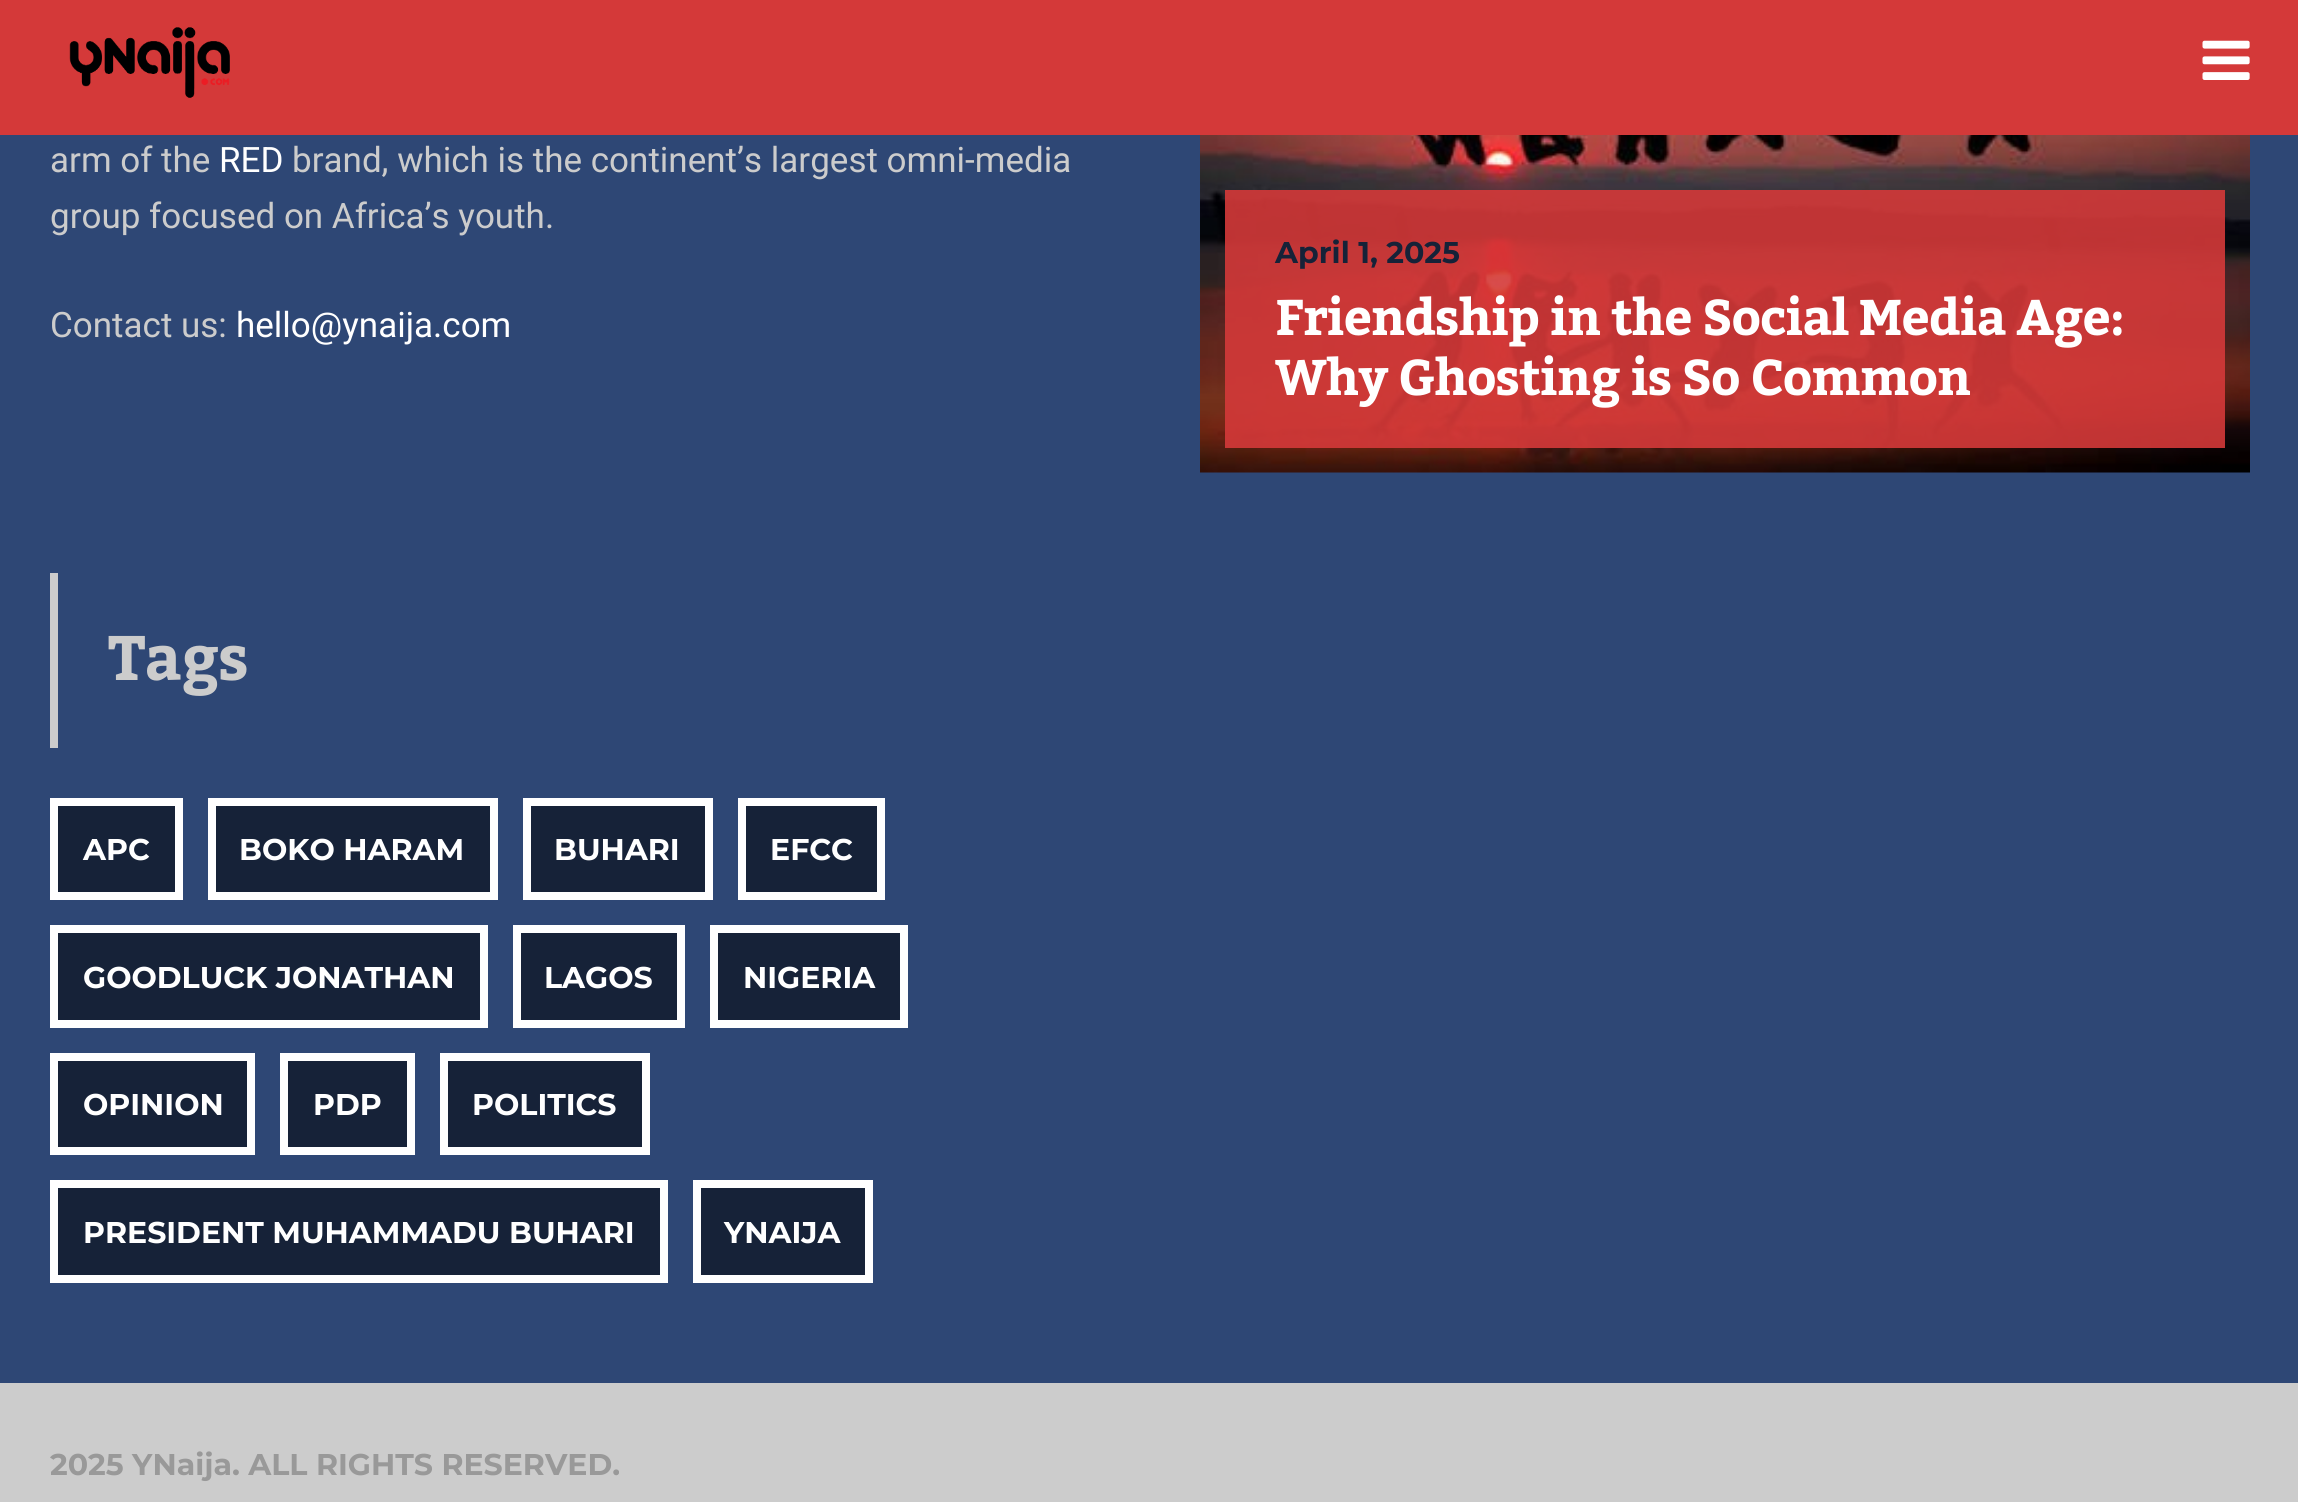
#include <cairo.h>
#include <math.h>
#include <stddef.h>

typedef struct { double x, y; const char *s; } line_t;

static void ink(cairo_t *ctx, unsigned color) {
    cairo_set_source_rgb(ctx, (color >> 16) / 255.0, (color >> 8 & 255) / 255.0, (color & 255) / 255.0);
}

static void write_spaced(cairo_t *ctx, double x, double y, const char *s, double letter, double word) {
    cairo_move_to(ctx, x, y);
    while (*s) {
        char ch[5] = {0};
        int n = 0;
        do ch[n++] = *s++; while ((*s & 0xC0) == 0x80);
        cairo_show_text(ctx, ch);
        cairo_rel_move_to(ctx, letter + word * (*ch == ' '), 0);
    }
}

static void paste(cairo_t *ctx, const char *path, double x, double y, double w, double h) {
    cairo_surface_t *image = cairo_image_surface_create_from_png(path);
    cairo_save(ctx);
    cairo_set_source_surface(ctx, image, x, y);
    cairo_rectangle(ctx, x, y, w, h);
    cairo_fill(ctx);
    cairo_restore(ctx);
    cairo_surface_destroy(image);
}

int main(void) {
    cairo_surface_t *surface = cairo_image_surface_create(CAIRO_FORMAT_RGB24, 2298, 1502);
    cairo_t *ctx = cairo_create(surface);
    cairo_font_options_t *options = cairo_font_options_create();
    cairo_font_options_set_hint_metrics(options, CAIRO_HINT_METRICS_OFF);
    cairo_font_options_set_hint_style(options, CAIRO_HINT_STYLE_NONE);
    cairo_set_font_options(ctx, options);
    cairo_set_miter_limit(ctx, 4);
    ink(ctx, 0x2E4775);
    cairo_paint(ctx);
    ink(ctx, 0xD43939);
    cairo_rectangle(ctx, 0, 0, 2298, 135);
    cairo_fill(ctx);
    paste(ctx, "media/1.png", 69, 27, 161, 71);
    paste(ctx, "media/2.png", 2202, 40, 48, 40);
    cairo_select_font_face(ctx, "Roboto", CAIRO_FONT_SLANT_NORMAL, CAIRO_FONT_WEIGHT_NORMAL);
    cairo_set_font_size(ctx, 35);
    ink(ctx, 0xCCCCCC);
    cairo_move_to(ctx, 50, 172);
    cairo_show_text(ctx, "arm of the");
    ink(ctx, 0xFFFFFF);
    cairo_move_to(ctx, 219, 172);
    cairo_show_text(ctx, "RED");
    ink(ctx, 0xCCCCCC);
    {
        static const line_t items[] = {
            {292, 172, "brand, which is the continent’s largest omni-media"},
            {50, 228, "group focused on Africa’s youth."},
            {50, 337, "Contact us:"},
        };
        for (size_t i = 0; i < sizeof items / sizeof *items; i++) {
            cairo_move_to(ctx, items[i].x, items[i].y);
            cairo_show_text(ctx, items[i].s);
        }
    }
    ink(ctx, 0xFFFFFF);
    cairo_move_to(ctx, 236, 337);
    cairo_show_text(ctx, "hello@ynaija.com");
    paste(ctx, "media/3.png", 1200, 135, 1050, 338);
    cairo_set_source_rgba(ctx, 0.831, 0.224, 0.224, 0.9);
    cairo_rectangle(ctx, 1225, 190, 1000, 258);
    cairo_fill(ctx);
    cairo_select_font_face(ctx, "Montserrat", CAIRO_FONT_SLANT_NORMAL, CAIRO_FONT_WEIGHT_BOLD);
    cairo_set_font_size(ctx, 30);
    ink(ctx, 0x162238);
    cairo_move_to(ctx, 1275, 263);
    cairo_show_text(ctx, "April 1, 2025");
    cairo_select_font_face(ctx, "Kadwa", CAIRO_FONT_SLANT_NORMAL, CAIRO_FONT_WEIGHT_BOLD);
    cairo_set_font_size(ctx, 50);
    ink(ctx, 0xFFFFFF);
    write_spaced(ctx, 1275, 335, "Friendship in the Social Media Age:", -1, 0);
    write_spaced(ctx, 1275, 395, "Why Ghosting is So Common", -1, 0);
    ink(ctx, 0xCCCCCC);
    cairo_rectangle(ctx, 50, 573, 8, 175);
    cairo_fill(ctx);
    cairo_set_font_size(ctx, 62.5);
    write_spaced(ctx, 108, 680, "Tags", -1, 0);
    ink(ctx, 0x162238);
    cairo_rectangle(ctx, 54, 802, 125, 94);
    cairo_fill_preserve(ctx);
    ink(ctx, 0xFFFFFF);
    cairo_set_line_width(ctx, 8);
    cairo_stroke(ctx);
    cairo_select_font_face(ctx, "Montserrat", CAIRO_FONT_SLANT_NORMAL, CAIRO_FONT_WEIGHT_BOLD);
    cairo_set_font_size(ctx, 30);
    cairo_move_to(ctx, 83, 860);
    cairo_show_text(ctx, "APC");
    ink(ctx, 0x162238);
    cairo_rectangle(ctx, 212, 802, 282, 94);
    cairo_fill_preserve(ctx);
    ink(ctx, 0xFFFFFF);
    cairo_stroke(ctx);
    cairo_move_to(ctx, 239, 860);
    cairo_show_text(ctx, "BOKO HARAM");
    ink(ctx, 0x162238);
    cairo_rectangle(ctx, 527, 802, 182, 94);
    cairo_fill_preserve(ctx);
    ink(ctx, 0xFFFFFF);
    cairo_stroke(ctx);
    cairo_move_to(ctx, 554, 860);
    cairo_show_text(ctx, "BUHARI");
    ink(ctx, 0x162238);
    cairo_rectangle(ctx, 742, 802, 139, 94);
    cairo_fill_preserve(ctx);
    ink(ctx, 0xFFFFFF);
    cairo_stroke(ctx);
    cairo_move_to(ctx, 770, 860);
    cairo_show_text(ctx, "EFCC");
    ink(ctx, 0x162238);
    cairo_rectangle(ctx, 54, 929, 430, 95);
    cairo_fill_preserve(ctx);
    ink(ctx, 0xFFFFFF);
    cairo_stroke(ctx);
    cairo_move_to(ctx, 83, 988);
    cairo_show_text(ctx, "GOODLUCK JONATHAN");
    ink(ctx, 0x162238);
    cairo_rectangle(ctx, 517, 929, 164, 95);
    cairo_fill_preserve(ctx);
    ink(ctx, 0xFFFFFF);
    cairo_stroke(ctx);
    cairo_move_to(ctx, 544, 988);
    cairo_show_text(ctx, "LAGOS");
    ink(ctx, 0x162238);
    cairo_rectangle(ctx, 714, 929, 190, 95);
    cairo_fill_preserve(ctx);
    ink(ctx, 0xFFFFFF);
    cairo_stroke(ctx);
    cairo_move_to(ctx, 743, 988);
    cairo_show_text(ctx, "NIGERIA");
    ink(ctx, 0x162238);
    cairo_rectangle(ctx, 54, 1057, 197, 94);
    cairo_fill_preserve(ctx);
    ink(ctx, 0xFFFFFF);
    cairo_stroke(ctx);
    cairo_move_to(ctx, 83, 1115);
    cairo_show_text(ctx, "OPINION");
    ink(ctx, 0x162238);
    cairo_rectangle(ctx, 284, 1057, 127, 94);
    cairo_fill_preserve(ctx);
    ink(ctx, 0xFFFFFF);
    cairo_stroke(ctx);
    cairo_move_to(ctx, 313, 1115);
    cairo_show_text(ctx, "PDP");
    ink(ctx, 0x162238);
    cairo_rectangle(ctx, 444, 1057, 202, 94);
    cairo_fill_preserve(ctx);
    ink(ctx, 0xFFFFFF);
    cairo_stroke(ctx);
    cairo_move_to(ctx, 472, 1115);
    cairo_show_text(ctx, "POLITICS");
    ink(ctx, 0x162238);
    cairo_rectangle(ctx, 54, 1184, 610, 95);
    cairo_fill_preserve(ctx);
    ink(ctx, 0xFFFFFF);
    cairo_stroke(ctx);
    cairo_move_to(ctx, 83, 1243);
    cairo_show_text(ctx, "PRESIDENT MUHAMMADU BUHARI");
    ink(ctx, 0x162238);
    cairo_rectangle(ctx, 697, 1184, 172, 95);
    cairo_fill_preserve(ctx);
    ink(ctx, 0xFFFFFF);
    cairo_stroke(ctx);
    cairo_move_to(ctx, 724, 1243);
    cairo_show_text(ctx, "YNAIJA");
    ink(ctx, 0xCCCCCC);
    cairo_rectangle(ctx, 0, 1383, 2298, 119);
    cairo_fill(ctx);
    ink(ctx, 0x999999);
    cairo_move_to(ctx, 50, 1475);
    cairo_show_text(ctx, "2025 YNaija. ALL RIGHTS RESERVED.");
    cairo_surface_write_to_png(surface, "image.png");
    cairo_font_options_destroy(options);
    cairo_destroy(ctx);
    cairo_surface_destroy(surface);
    return 0;
}
